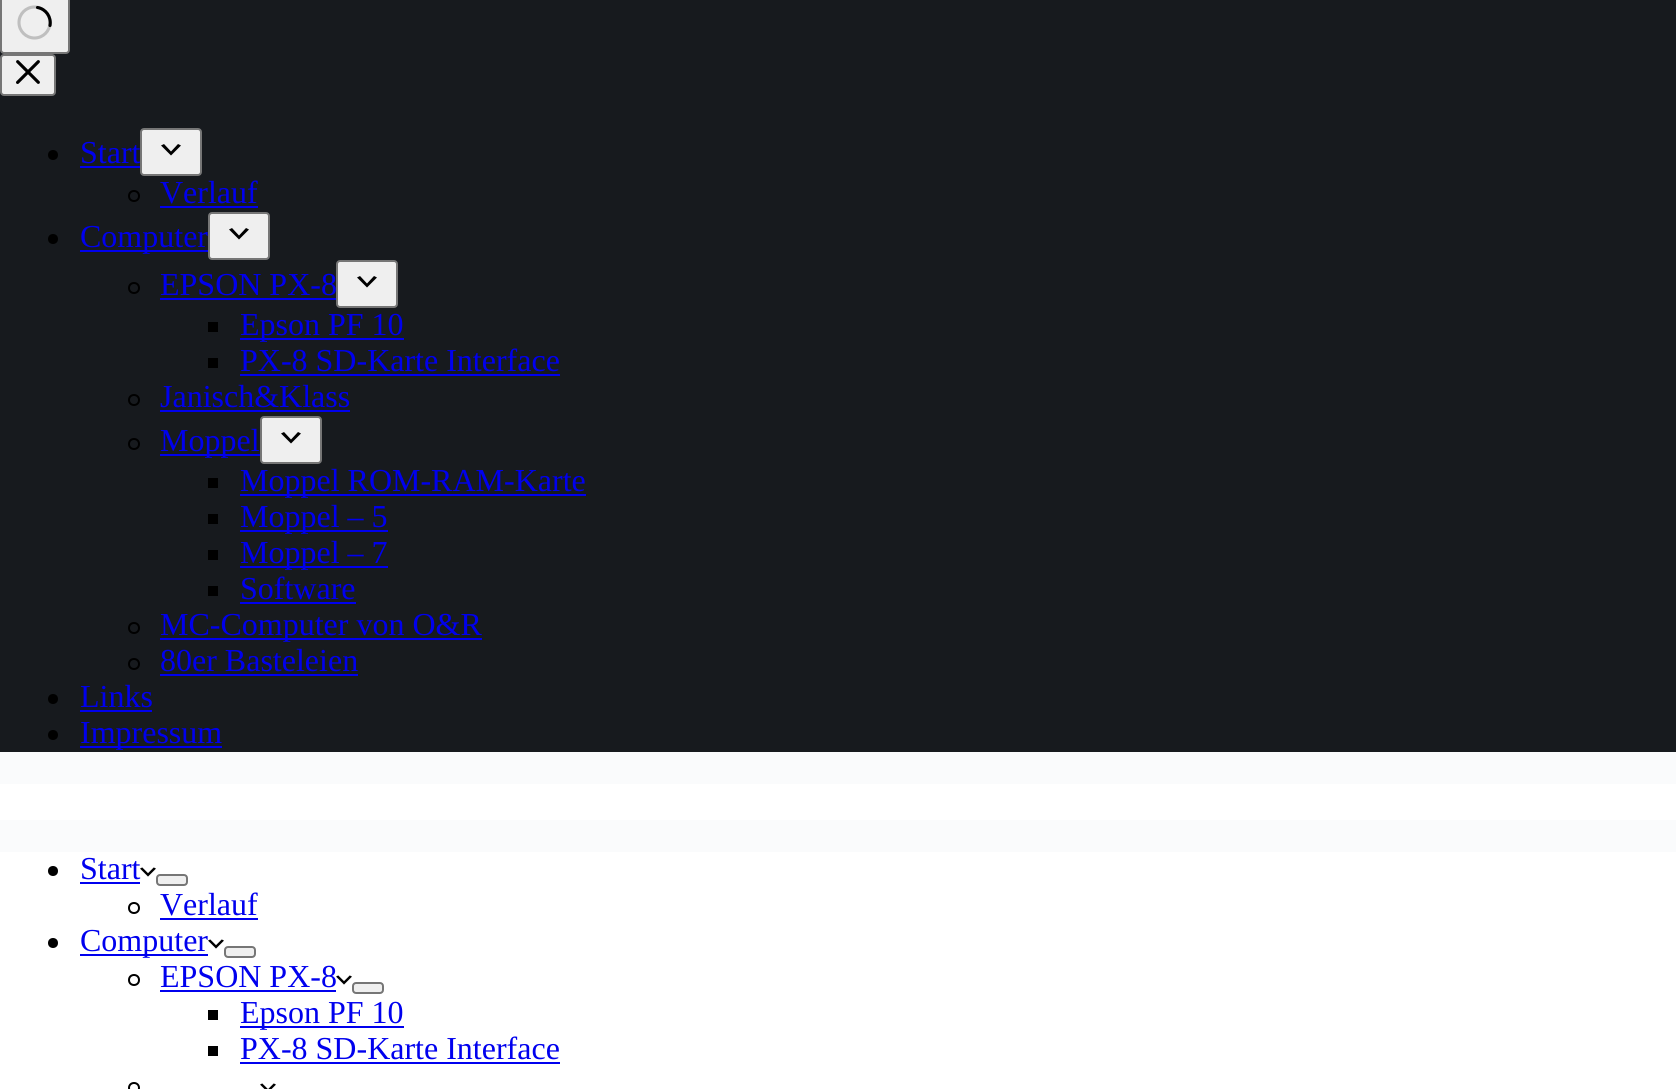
#include <cairo.h>
#include <math.h>
#include <stddef.h>


static void ink(cairo_t *ctx, unsigned color) {
    cairo_set_source_rgb(ctx, (color >> 16) / 255.0, (color >> 8 & 255) / 255.0, (color & 255) / 255.0);
}

static void round_path(cairo_t *ctx, double x, double y, double w, double h, double r) {
    cairo_new_sub_path(ctx);
    cairo_arc(ctx, x + w - r, y + h - r, r, 0, M_PI / 2);
    cairo_arc(ctx, x + r, y + h - r, r, M_PI / 2, M_PI);
    cairo_arc(ctx, x + r, y + r, r, M_PI, 1.5 * M_PI);
    cairo_arc(ctx, x + w - r, y + r, r, 1.5 * M_PI, 2 * M_PI);
    cairo_close_path(ctx);
}

static void paste(cairo_t *ctx, const char *path, double x, double y, double w, double h) {
    cairo_surface_t *image = cairo_image_surface_create_from_png(path);
    cairo_save(ctx);
    cairo_set_source_surface(ctx, image, x, y);
    cairo_rectangle(ctx, x, y, w, h);
    cairo_fill(ctx);
    cairo_restore(ctx);
    cairo_surface_destroy(image);
}

int main(void) {
    cairo_surface_t *surface = cairo_image_surface_create(CAIRO_FORMAT_RGB24, 1676, 1089);
    cairo_t *ctx = cairo_create(surface);
    cairo_font_options_t *options = cairo_font_options_create();
    cairo_font_options_set_hint_metrics(options, CAIRO_HINT_METRICS_OFF);
    cairo_font_options_set_hint_style(options, CAIRO_HINT_STYLE_NONE);
    cairo_set_font_options(ctx, options);
    cairo_set_miter_limit(ctx, 4);
    ink(ctx, 0xFAFBFC);
    cairo_paint(ctx);
    ink(ctx, 0x171A1E);
    cairo_rectangle(ctx, 0, 0, 1676, 752);
    cairo_fill(ctx);
    ink(ctx, 0xEFEFEF);
    round_path(ctx, 1, -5, 68, 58, 3);
    cairo_fill_preserve(ctx);
    ink(ctx, 0x767676);
    cairo_stroke(ctx);
    cairo_arc(ctx, 34.5, 22.5, 15.5, 0, 2 * M_PI);
    ink(ctx, 0xBFBFBF);
    cairo_set_line_width(ctx, 3.1);
    cairo_stroke(ctx);
    cairo_new_path(ctx);
    cairo_move_to(ctx, 37.5, 7.5);
    cairo_curve_to(ctx, 46, 9, 51.5, 17, 50, 25.5);
    ink(ctx, 0x000000);
    cairo_set_line_cap(ctx, CAIRO_LINE_CAP_ROUND);
    cairo_stroke(ctx);
    ink(ctx, 0xEFEFEF);
    round_path(ctx, 1, 55, 54, 40, 3);
    cairo_fill_preserve(ctx);
    ink(ctx, 0x767676);
    cairo_set_line_width(ctx, 2);
    cairo_set_line_cap(ctx, CAIRO_LINE_CAP_BUTT);
    cairo_stroke(ctx);
    paste(ctx, "media/1.png", 16, 60, 24, 24);
    ink(ctx, 0x000000);
    cairo_arc(ctx, 53, 155, 5, 0, 2 * M_PI);
    cairo_fill(ctx);
    cairo_select_font_face(ctx, "Liberation Serif", CAIRO_FONT_SLANT_NORMAL, CAIRO_FONT_WEIGHT_NORMAL);
    cairo_set_font_size(ctx, 32);
    ink(ctx, 0x0000EE);
    cairo_move_to(ctx, 80, 163);
    cairo_show_text(ctx, "Start");
    cairo_rectangle(ctx, 80, 166, 60, 2);
    cairo_fill(ctx);
    ink(ctx, 0xEFEFEF);
    round_path(ctx, 141, 129, 60, 46, 3);
    cairo_fill_preserve(ctx);
    ink(ctx, 0x767676);
    cairo_stroke(ctx);
    ink(ctx, 0x000000);
    cairo_new_path(ctx);
    cairo_move_to(ctx, 164, 144);
    cairo_line_to(ctx, 171, 151.5);
    cairo_line_to(ctx, 178, 144);
    cairo_line_to(ctx, 181, 145.5);
    cairo_line_to(ctx, 171, 155.5);
    cairo_line_to(ctx, 161, 145.5);
    cairo_close_path(ctx);
    cairo_fill(ctx);
    cairo_arc(ctx, 134, 196, 5, 0, 2 * M_PI);
    cairo_stroke(ctx);
    ink(ctx, 0x0000EE);
    cairo_move_to(ctx, 160, 203);
    cairo_show_text(ctx, "Verlauf");
    cairo_rectangle(ctx, 160, 206, 98, 2);
    cairo_fill(ctx);
    ink(ctx, 0x000000);
    cairo_arc(ctx, 53, 239, 5, 0, 2 * M_PI);
    cairo_fill(ctx);
    ink(ctx, 0x0000EE);
    cairo_rectangle(ctx, 80, 250, 128, 2);
    cairo_fill(ctx);
    cairo_move_to(ctx, 80, 247);
    cairo_show_text(ctx, "Computer");
    ink(ctx, 0xEFEFEF);
    round_path(ctx, 209, 213, 60, 46, 3);
    cairo_fill_preserve(ctx);
    ink(ctx, 0x767676);
    cairo_stroke(ctx);
    ink(ctx, 0x000000);
    cairo_new_path(ctx);
    cairo_move_to(ctx, 232, 228);
    cairo_line_to(ctx, 239, 235.5);
    cairo_line_to(ctx, 246, 228);
    cairo_line_to(ctx, 249, 229.5);
    cairo_line_to(ctx, 239, 239.5);
    cairo_line_to(ctx, 229, 229.5);
    cairo_close_path(ctx);
    cairo_fill(ctx);
    cairo_arc(ctx, 134, 288, 5, 0, 2 * M_PI);
    cairo_stroke(ctx);
    ink(ctx, 0x0000EE);
    cairo_move_to(ctx, 160, 295);
    cairo_show_text(ctx, "EPSON PX-8");
    cairo_rectangle(ctx, 160, 298, 176, 2);
    cairo_fill(ctx);
    ink(ctx, 0xEFEFEF);
    round_path(ctx, 337, 261, 60, 46, 3);
    cairo_fill_preserve(ctx);
    ink(ctx, 0x767676);
    cairo_stroke(ctx);
    ink(ctx, 0x000000);
    cairo_new_path(ctx);
    cairo_move_to(ctx, 360, 276);
    cairo_line_to(ctx, 367, 283.5);
    cairo_line_to(ctx, 374, 276);
    cairo_line_to(ctx, 377, 277.5);
    cairo_line_to(ctx, 367, 287.5);
    cairo_line_to(ctx, 357, 277.5);
    cairo_close_path(ctx);
    cairo_fill(ctx);
    cairo_rectangle(ctx, 208, 322, 10, 10);
    cairo_fill(ctx);
    ink(ctx, 0x0000EE);
    cairo_rectangle(ctx, 240, 338, 164, 2);
    cairo_fill(ctx);
    cairo_move_to(ctx, 240, 335);
    cairo_show_text(ctx, "Epson PF 10");
    ink(ctx, 0x000000);
    cairo_rectangle(ctx, 208, 358, 10, 10);
    cairo_fill(ctx);
    ink(ctx, 0x0000EE);
    cairo_move_to(ctx, 240, 371);
    cairo_show_text(ctx, "PX-8 SD-Karte Interface");
    cairo_rectangle(ctx, 240, 374, 320, 2);
    cairo_fill(ctx);
    cairo_arc(ctx, 134, 400, 5, 0, 2 * M_PI);
    ink(ctx, 0x000000);
    cairo_stroke(ctx);
    ink(ctx, 0x0000EE);
    cairo_move_to(ctx, 160, 407);
    cairo_show_text(ctx, "Janisch&Klass");
    cairo_rectangle(ctx, 160, 410, 190, 2);
    cairo_fill(ctx);
    cairo_arc(ctx, 134, 444, 5, 0, 2 * M_PI);
    ink(ctx, 0x000000);
    cairo_stroke(ctx);
    ink(ctx, 0x0000EE);
    cairo_rectangle(ctx, 160, 454, 100, 2);
    cairo_fill(ctx);
    cairo_move_to(ctx, 160, 451);
    cairo_show_text(ctx, "Moppel");
    ink(ctx, 0xEFEFEF);
    round_path(ctx, 261, 417, 60, 46, 3);
    cairo_fill_preserve(ctx);
    ink(ctx, 0x767676);
    cairo_stroke(ctx);
    ink(ctx, 0x000000);
    cairo_new_path(ctx);
    cairo_move_to(ctx, 284, 432);
    cairo_line_to(ctx, 291, 439.5);
    cairo_line_to(ctx, 298, 432);
    cairo_line_to(ctx, 301, 433.5);
    cairo_line_to(ctx, 291, 443.5);
    cairo_line_to(ctx, 281, 433.5);
    cairo_close_path(ctx);
    cairo_fill(ctx);
    cairo_rectangle(ctx, 208, 478, 10, 10);
    cairo_fill(ctx);
    ink(ctx, 0x0000EE);
    cairo_rectangle(ctx, 240, 494, 346, 2);
    cairo_fill(ctx);
    cairo_move_to(ctx, 240, 491);
    cairo_show_text(ctx, "Moppel ROM-RAM-Karte");
    ink(ctx, 0x000000);
    cairo_rectangle(ctx, 208, 514, 10, 10);
    cairo_fill(ctx);
    ink(ctx, 0x0000EE);
    cairo_rectangle(ctx, 240, 530, 148, 2);
    cairo_fill(ctx);
    cairo_move_to(ctx, 240, 527);
    cairo_show_text(ctx, "Moppel – 5");
    ink(ctx, 0x000000);
    cairo_rectangle(ctx, 208, 550, 10, 10);
    cairo_fill(ctx);
    ink(ctx, 0x0000EE);
    cairo_rectangle(ctx, 240, 566, 148, 2);
    cairo_fill(ctx);
    cairo_move_to(ctx, 240, 563);
    cairo_show_text(ctx, "Moppel – 7");
    ink(ctx, 0x000000);
    cairo_rectangle(ctx, 208, 586, 10, 10);
    cairo_fill(ctx);
    ink(ctx, 0x0000EE);
    cairo_move_to(ctx, 240, 599);
    cairo_show_text(ctx, "Software");
    cairo_rectangle(ctx, 240, 602, 116, 2);
    cairo_fill(ctx);
    cairo_arc(ctx, 134, 628, 5, 0, 2 * M_PI);
    ink(ctx, 0x000000);
    cairo_stroke(ctx);
    ink(ctx, 0x0000EE);
    cairo_rectangle(ctx, 160, 638, 322, 2);
    cairo_fill(ctx);
    cairo_move_to(ctx, 160, 635);
    cairo_show_text(ctx, "MC-Computer von O&R");
    cairo_new_path(ctx);
    cairo_arc(ctx, 134, 664, 5, 0, 2 * M_PI);
    ink(ctx, 0x000000);
    cairo_stroke(ctx);
    ink(ctx, 0x0000EE);
    cairo_move_to(ctx, 160, 671);
    cairo_show_text(ctx, "80er Basteleien");
    cairo_rectangle(ctx, 160, 674, 198, 2);
    cairo_fill(ctx);
    ink(ctx, 0x000000);
    cairo_arc(ctx, 53, 699, 5, 0, 2 * M_PI);
    cairo_fill(ctx);
    ink(ctx, 0x0000EE);
    cairo_move_to(ctx, 80, 707);
    cairo_show_text(ctx, "Links");
    cairo_rectangle(ctx, 80, 710, 72, 2);
    cairo_fill(ctx);
    ink(ctx, 0x000000);
    cairo_arc(ctx, 53, 735, 5, 0, 2 * M_PI);
    cairo_fill(ctx);
    ink(ctx, 0x0000EE);
    cairo_rectangle(ctx, 80, 746, 142, 2);
    cairo_fill(ctx);
    cairo_move_to(ctx, 80, 743);
    cairo_show_text(ctx, "Impressum");
    ink(ctx, 0xFFFFFF);
    cairo_rectangle(ctx, 0, 784, 1676, 36);
    cairo_fill(ctx);
    cairo_rectangle(ctx, 0, 852, 1676, 237);
    cairo_fill(ctx);
    ink(ctx, 0x000000);
    cairo_arc(ctx, 53, 871, 5, 0, 2 * M_PI);
    cairo_fill(ctx);
    ink(ctx, 0x0000EE);
    cairo_move_to(ctx, 80, 879);
    cairo_show_text(ctx, "Start");
    cairo_rectangle(ctx, 80, 882, 60, 2);
    cairo_fill(ctx);
    paste(ctx, "media/2.png", 140, 867, 16, 10);
    ink(ctx, 0xEFEFEF);
    round_path(ctx, 157, 875, 30, 10, 3);
    cairo_fill_preserve(ctx);
    ink(ctx, 0x767676);
    cairo_stroke(ctx);
    cairo_arc(ctx, 134, 908, 5, 0, 2 * M_PI);
    ink(ctx, 0x000000);
    cairo_stroke(ctx);
    ink(ctx, 0x0000EE);
    cairo_move_to(ctx, 160, 915);
    cairo_show_text(ctx, "Verlauf");
    cairo_rectangle(ctx, 160, 918, 98, 2);
    cairo_fill(ctx);
    ink(ctx, 0x000000);
    cairo_arc(ctx, 53, 943, 5, 0, 2 * M_PI);
    cairo_fill(ctx);
    ink(ctx, 0x0000EE);
    cairo_rectangle(ctx, 80, 954, 128, 2);
    cairo_fill(ctx);
    cairo_move_to(ctx, 80, 951);
    cairo_show_text(ctx, "Computer");
    paste(ctx, "media/2.png", 208, 939, 16, 10);
    ink(ctx, 0xEFEFEF);
    round_path(ctx, 225, 947, 30, 10, 3);
    cairo_fill_preserve(ctx);
    ink(ctx, 0x767676);
    cairo_stroke(ctx);
    cairo_arc(ctx, 134, 980, 5, 0, 2 * M_PI);
    ink(ctx, 0x000000);
    cairo_stroke(ctx);
    ink(ctx, 0x0000EE);
    cairo_move_to(ctx, 160, 987);
    cairo_show_text(ctx, "EPSON PX-8");
    cairo_rectangle(ctx, 160, 990, 176, 2);
    cairo_fill(ctx);
    paste(ctx, "media/2.png", 336, 975, 16, 10);
    ink(ctx, 0xEFEFEF);
    round_path(ctx, 353, 983, 30, 10, 3);
    cairo_fill_preserve(ctx);
    ink(ctx, 0x767676);
    cairo_stroke(ctx);
    ink(ctx, 0x000000);
    cairo_rectangle(ctx, 208, 1010, 10, 10);
    cairo_fill(ctx);
    ink(ctx, 0x0000EE);
    cairo_rectangle(ctx, 240, 1026, 164, 2);
    cairo_fill(ctx);
    cairo_move_to(ctx, 240, 1023);
    cairo_show_text(ctx, "Epson PF 10");
    ink(ctx, 0x000000);
    cairo_rectangle(ctx, 208, 1046, 10, 10);
    cairo_fill(ctx);
    ink(ctx, 0x0000EE);
    cairo_move_to(ctx, 240, 1059);
    cairo_show_text(ctx, "PX-8 SD-Karte Interface");
    cairo_rectangle(ctx, 240, 1062, 320, 2);
    cairo_fill(ctx);
    cairo_arc(ctx, 134, 1088, 5, 0, 2 * M_PI);
    ink(ctx, 0x000000);
    cairo_stroke(ctx);
    paste(ctx, "media/3.png", 260, 1083, 16, 6);
    cairo_surface_write_to_png(surface, "image.png");
    cairo_font_options_destroy(options);
    cairo_destroy(ctx);
    cairo_surface_destroy(surface);
    return 0;
}
